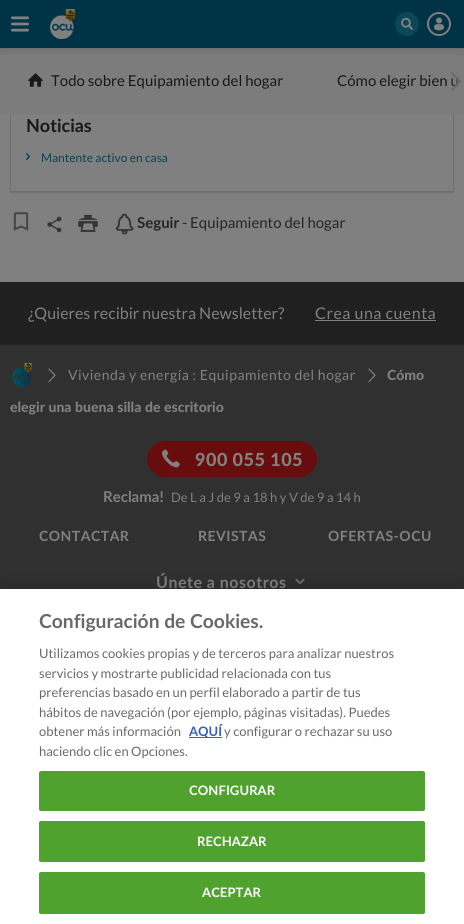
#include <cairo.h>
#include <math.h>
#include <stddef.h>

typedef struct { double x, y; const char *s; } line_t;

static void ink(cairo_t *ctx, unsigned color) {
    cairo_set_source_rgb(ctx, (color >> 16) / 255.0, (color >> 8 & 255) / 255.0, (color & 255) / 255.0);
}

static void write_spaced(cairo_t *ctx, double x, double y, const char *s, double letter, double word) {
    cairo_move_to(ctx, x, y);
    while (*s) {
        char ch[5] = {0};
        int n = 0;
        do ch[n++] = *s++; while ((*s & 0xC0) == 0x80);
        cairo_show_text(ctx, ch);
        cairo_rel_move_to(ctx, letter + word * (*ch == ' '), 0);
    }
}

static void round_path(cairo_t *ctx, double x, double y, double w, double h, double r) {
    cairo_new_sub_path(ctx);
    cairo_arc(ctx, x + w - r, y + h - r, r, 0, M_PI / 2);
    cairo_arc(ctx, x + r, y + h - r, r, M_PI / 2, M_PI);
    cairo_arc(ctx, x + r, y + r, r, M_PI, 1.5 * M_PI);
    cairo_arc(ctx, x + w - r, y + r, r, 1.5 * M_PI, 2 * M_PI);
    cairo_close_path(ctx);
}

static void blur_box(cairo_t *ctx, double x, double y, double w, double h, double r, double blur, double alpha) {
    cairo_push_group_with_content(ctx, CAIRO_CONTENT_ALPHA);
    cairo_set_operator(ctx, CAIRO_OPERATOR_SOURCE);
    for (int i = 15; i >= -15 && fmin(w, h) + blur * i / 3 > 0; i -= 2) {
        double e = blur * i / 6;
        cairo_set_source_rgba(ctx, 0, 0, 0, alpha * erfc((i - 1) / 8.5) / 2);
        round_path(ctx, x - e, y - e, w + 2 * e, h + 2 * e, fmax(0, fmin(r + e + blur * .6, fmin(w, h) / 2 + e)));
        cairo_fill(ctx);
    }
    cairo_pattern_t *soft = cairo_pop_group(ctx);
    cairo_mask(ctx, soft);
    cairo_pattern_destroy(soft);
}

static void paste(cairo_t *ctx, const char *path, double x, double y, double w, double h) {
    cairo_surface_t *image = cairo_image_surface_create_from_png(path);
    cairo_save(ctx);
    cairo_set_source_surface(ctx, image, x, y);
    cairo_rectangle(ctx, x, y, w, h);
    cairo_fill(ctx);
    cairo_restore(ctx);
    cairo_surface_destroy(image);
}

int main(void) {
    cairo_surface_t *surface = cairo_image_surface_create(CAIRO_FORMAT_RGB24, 464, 924);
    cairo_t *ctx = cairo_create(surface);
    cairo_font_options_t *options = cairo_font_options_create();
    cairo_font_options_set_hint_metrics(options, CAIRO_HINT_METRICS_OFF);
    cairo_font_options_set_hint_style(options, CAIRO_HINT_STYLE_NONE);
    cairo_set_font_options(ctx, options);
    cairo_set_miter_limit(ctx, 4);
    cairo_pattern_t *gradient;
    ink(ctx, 0x808080);
    cairo_paint(ctx);
    cairo_save(ctx);
    cairo_rectangle(ctx, 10, 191, 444, 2);
    cairo_clip(ctx);
    ink(ctx, 0x000000);
    blur_box(ctx, 10, -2, 444, 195, 0, 0.5, 0.15);
    cairo_restore(ctx);
    ink(ctx, 0x7D7C7C);
    cairo_rectangle(ctx, 0, 49, 464, 65);
    cairo_fill(ctx);
    ink(ctx, 0x000000);
    blur_box(ctx, 0, 2, 464, 49, 0, 5, 0.1);
    ink(ctx, 0x003345);
    cairo_rectangle(ctx, 0, 0, 464, 48);
    cairo_fill(ctx);
    ink(ctx, 0x6F6F6F);
    cairo_rectangle(ctx, 0, 48, 464, 1);
    cairo_fill(ctx);
    paste(ctx, "media/1.png", 11, 16, 18, 16);
    paste(ctx, "media/2.png", 50, 9, 26, 30);
    ink(ctx, 0x0A4757);
    cairo_arc(ctx, 407, 24, 12, 0, 2 * M_PI);
    cairo_fill(ctx);
    paste(ctx, "media/3.png", 401, 17, 12, 13);
    cairo_arc(ctx, 439, 24, 11, 0, 2 * M_PI);
    ink(ctx, 0x808080);
    cairo_stroke(ctx);
    cairo_arc(ctx, 439, 24, 10, 0, 2 * M_PI);
    cairo_fill(ctx);
    paste(ctx, "media/4.png", 429, 14, 20, 20);
    cairo_select_font_face(ctx, "Lato", CAIRO_FONT_SLANT_NORMAL, CAIRO_FONT_WEIGHT_NORMAL);
    cairo_set_font_size(ctx, 15);
    ink(ctx, 0x181818);
    cairo_move_to(ctx, 337, 86);
    cairo_show_text(ctx, "Cómo elegir bien u");
    gradient = cairo_pattern_create_linear(441, 84, 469, 84);
    cairo_pattern_add_color_stop_rgba(gradient, 0.3, 0.49, 0.486, 0.486, 0);
    cairo_pattern_add_color_stop_rgba(gradient, 1, 0.49, 0.486, 0.486, 1);
    cairo_set_source(ctx, gradient);
    cairo_pattern_destroy(gradient);
    cairo_rectangle(ctx, 451, 78, 7, 8);
    cairo_fill(ctx);
    paste(ctx, "media/5.png", 451, 72, 10, 19);
    paste(ctx, "media/6.png", 28, 73, 15, 14);
    ink(ctx, 0x181818);
    cairo_move_to(ctx, 51, 86);
    cairo_show_text(ctx, "Todo sobre Equipamiento del hogar");
    ink(ctx, 0x70706F);
    cairo_rectangle(ctx, 453, 114, 1, 77);
    cairo_fill(ctx);
    cairo_rectangle(ctx, 10, 114, 1, 77);
    cairo_fill(ctx);
    cairo_select_font_face(ctx, "Lato", CAIRO_FONT_SLANT_NORMAL, CAIRO_FONT_WEIGHT_BOLD);
    cairo_set_font_size(ctx, 18);
    ink(ctx, 0x181818);
    cairo_move_to(ctx, 26, 132);
    cairo_show_text(ctx, "Noticias");
    paste(ctx, "media/7.png", 26, 153, 4, 7);
    cairo_select_font_face(ctx, "Lato", CAIRO_FONT_SLANT_NORMAL, CAIRO_FONT_WEIGHT_NORMAL);
    cairo_set_font_size(ctx, 12);
    ink(ctx, 0x094250);
    cairo_move_to(ctx, 41, 162);
    cairo_show_text(ctx, "Mantente activo en casa");
    paste(ctx, "media/8.png", 13, 212, 16, 19);
    paste(ctx, "media/9.png", 47, 216, 15, 17);
    paste(ctx, "media/10.png", 78, 214, 20, 18);
    paste(ctx, "media/11.png", 115, 213, 19, 22);
    cairo_select_font_face(ctx, "Lato", CAIRO_FONT_SLANT_NORMAL, CAIRO_FONT_WEIGHT_BOLD);
    cairo_set_font_size(ctx, 15);
    ink(ctx, 0x252525);
    cairo_move_to(ctx, 137, 228);
    cairo_show_text(ctx, "Seguir");
    cairo_select_font_face(ctx, "Lato", CAIRO_FONT_SLANT_NORMAL, CAIRO_FONT_WEIGHT_NORMAL);
    cairo_move_to(ctx, 182, 228);
    cairo_show_text(ctx, "- Equipamiento del hogar");
    ink(ctx, 0x303030);
    cairo_rectangle(ctx, 0, 345, 464, 244);
    cairo_fill(ctx);
    ink(ctx, 0x202020);
    cairo_rectangle(ctx, 0, 282, 464, 63);
    cairo_fill(ctx);
    cairo_set_font_size(ctx, 16);
    ink(ctx, 0x808080);
    cairo_move_to(ctx, 28, 319);
    cairo_show_text(ctx, "¿Quieres recibir nuestra Newsletter?");
    write_spaced(ctx, 315, 319, "Crea una cuenta", 0.5, 0);
    cairo_rectangle(ctx, 315, 320, 121, 1);
    cairo_fill(ctx);
    paste(ctx, "media/12.png", 12, 363, 20, 24);
    paste(ctx, "media/13.png", 48, 368, 8, 15);
    cairo_set_font_size(ctx, 14);
    write_spaced(ctx, 68, 380, "Vivienda y energía : Equipamiento del hogar", 0.5, 0);
    paste(ctx, "media/13.png", 368, 368, 8, 15);
    cairo_select_font_face(ctx, "Lato Black", CAIRO_FONT_SLANT_NORMAL, CAIRO_FONT_WEIGHT_NORMAL);
    cairo_move_to(ctx, 387, 380);
    cairo_show_text(ctx, "Cómo");
    write_spaced(ctx, 10, 412, "elegir una buena silla de escritorio", 0, 0.25);
    ink(ctx, 0x680D0D);
    round_path(ctx, 147, 441, 170, 36, 18);
    cairo_fill(ctx);
    paste(ctx, "media/14.png", 162, 449, 18, 19);
    cairo_set_font_size(ctx, 18);
    ink(ctx, 0x808080);
    write_spaced(ctx, 195, 466, "900 055 105", 0.5, 0);
    cairo_select_font_face(ctx, "Lato", CAIRO_FONT_SLANT_NORMAL, CAIRO_FONT_WEIGHT_BOLD);
    cairo_set_font_size(ctx, 15);
    cairo_move_to(ctx, 103, 502);
    cairo_show_text(ctx, "Reclama!");
    cairo_select_font_face(ctx, "Lato", CAIRO_FONT_SLANT_NORMAL, CAIRO_FONT_WEIGHT_NORMAL);
    cairo_set_font_size(ctx, 13);
    cairo_move_to(ctx, 171, 502);
    cairo_show_text(ctx, "De L a J de 9 a 18 h y V de 9 a 14 h");
    cairo_select_font_face(ctx, "Lato", CAIRO_FONT_SLANT_NORMAL, CAIRO_FONT_WEIGHT_BOLD);
    cairo_set_font_size(ctx, 14);
    {
        static const line_t items[] = {
            {39, 541, "CONTACTAR"},
            {198, 541, "REVISTAS"},
            {328, 541, "OFERTAS-OCU"},
        };
        for (size_t i = 0; i < sizeof items / sizeof *items; i++) {
            write_spaced(ctx, items[i].x, items[i].y, items[i].s, 0.5, 0);
        }
    }
    cairo_set_font_size(ctx, 16);
    write_spaced(ctx, 156, 588, "Únete a nosotros", 0.5, 0);
    paste(ctx, "media/15.png", 295, 578, 10, 6);
    ink(ctx, 0x000000);
    blur_box(ctx, 0, 589, 464, 335, 0, 9, 0.2);
    ink(ctx, 0xFFFFFF);
    cairo_rectangle(ctx, 0, 589, 464, 335);
    cairo_fill(ctx);
    cairo_set_font_size(ctx, 19.25);
    ink(ctx, 0x696969);
    cairo_move_to(ctx, 39, 628);
    cairo_show_text(ctx, "Configuración de Cookies.");
    cairo_select_font_face(ctx, "Lato", CAIRO_FONT_SLANT_NORMAL, CAIRO_FONT_WEIGHT_NORMAL);
    cairo_set_font_size(ctx, 13);
    {
        static const line_t items[] = {
            {39, 658, "Utilizamos cookies propias y de terceros para analizar nuestros"},
            {39, 678, "servicios y mostrarte publicidad relacionada con tus"},
            {39, 697, "preferencias basado en un perfil elaborado a partir de tus"},
            {39, 717, "hábitos de navegación (por ejemplo, páginas visitadas). Puedes"},
            {39, 736, "obtener más información"},
        };
        for (size_t i = 0; i < sizeof items / sizeof *items; i++) {
            cairo_move_to(ctx, items[i].x, items[i].y);
            cairo_show_text(ctx, items[i].s);
        }
    }
    ink(ctx, 0x3860BE);
    cairo_rectangle(ctx, 189, 737, 33, 1);
    cairo_fill(ctx);
    cairo_select_font_face(ctx, "Lato", CAIRO_FONT_SLANT_NORMAL, CAIRO_FONT_WEIGHT_BOLD);
    cairo_move_to(ctx, 189, 736);
    cairo_show_text(ctx, "AQUÍ");
    cairo_select_font_face(ctx, "Lato", CAIRO_FONT_SLANT_NORMAL, CAIRO_FONT_WEIGHT_NORMAL);
    ink(ctx, 0x696969);
    cairo_move_to(ctx, 224, 736);
    cairo_show_text(ctx, "y configurar o rechazar su uso");
    cairo_move_to(ctx, 39, 756);
    cairo_show_text(ctx, "haciendo clic en Opciones.");
    ink(ctx, 0x50A22F);
    round_path(ctx, 39, 771, 386, 40, 2);
    cairo_fill(ctx);
    cairo_select_font_face(ctx, "Lato", CAIRO_FONT_SLANT_NORMAL, CAIRO_FONT_WEIGHT_BOLD);
    ink(ctx, 0xFFFFFF);
    write_spaced(ctx, 189, 795, "CONFIGURAR", 0.1, 0);
    ink(ctx, 0x50A22F);
    round_path(ctx, 39.5, 821.5, 385, 40, 1.5);
    cairo_fill_preserve(ctx);
    cairo_set_line_width(ctx, 1);
    cairo_stroke(ctx);
    ink(ctx, 0xFFFFFF);
    write_spaced(ctx, 197, 846, "RECHAZAR", 0.1, 0);
    ink(ctx, 0x50A22F);
    round_path(ctx, 39.5, 872.5, 385, 41, 1.5);
    cairo_fill_preserve(ctx);
    cairo_stroke(ctx);
    ink(ctx, 0xFFFFFF);
    write_spaced(ctx, 202, 897, "ACEPTAR", 0.1, 0);
    cairo_surface_write_to_png(surface, "image.png");
    cairo_font_options_destroy(options);
    cairo_destroy(ctx);
    cairo_surface_destroy(surface);
    return 0;
}
